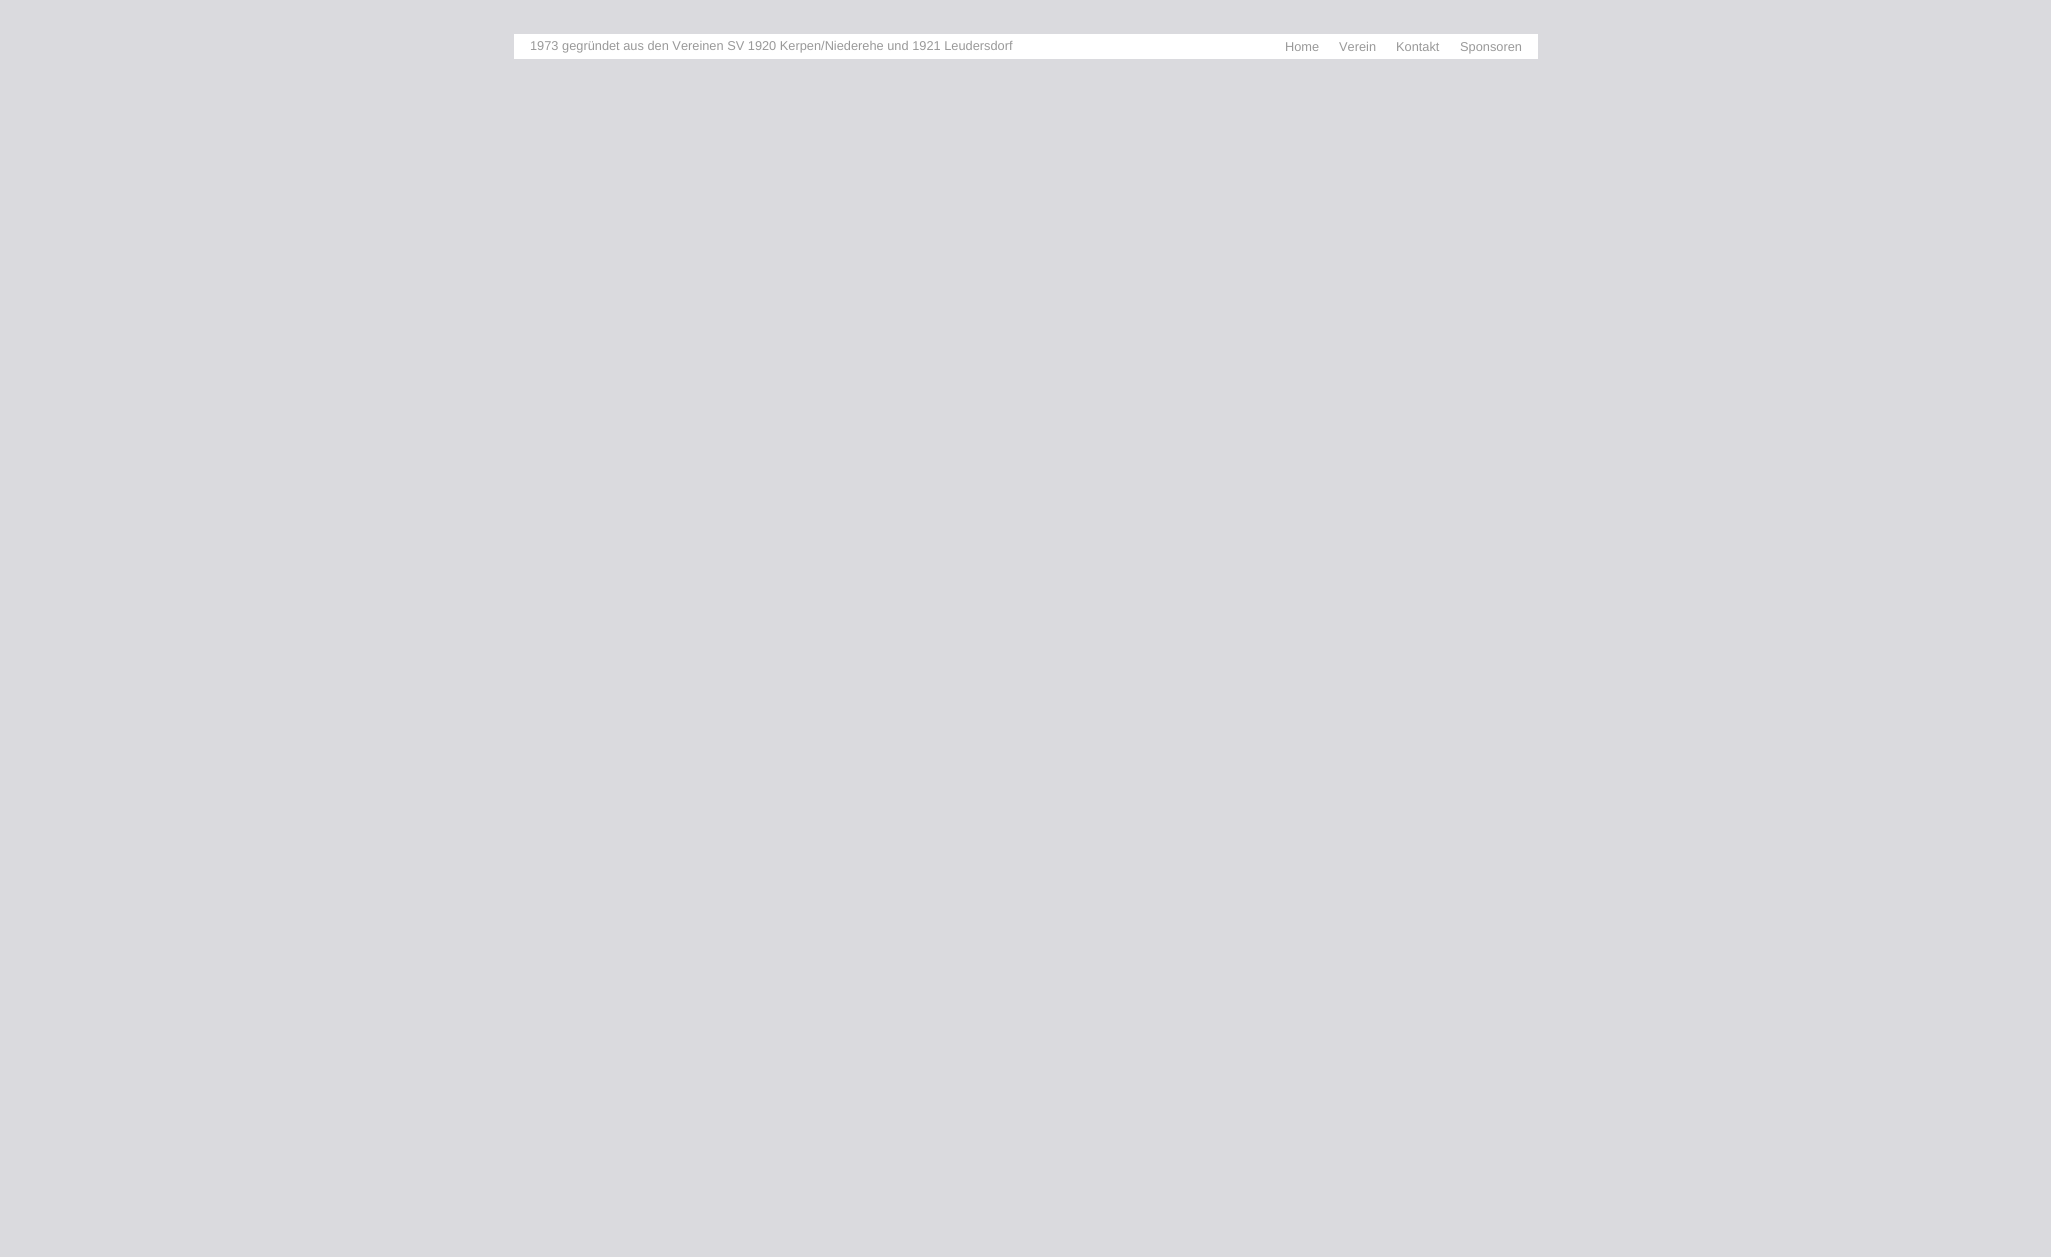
#include <cairo.h>
#include <math.h>
#include <stddef.h>

typedef struct { double x, y; const char *s; } line_t;

static void ink(cairo_t *ctx, unsigned color) {
    cairo_set_source_rgb(ctx, (color >> 16) / 255.0, (color >> 8 & 255) / 255.0, (color & 255) / 255.0);
}

int main(void) {
    cairo_surface_t *surface = cairo_image_surface_create(CAIRO_FORMAT_RGB24, 2051, 1257);
    cairo_t *ctx = cairo_create(surface);
    cairo_font_options_t *options = cairo_font_options_create();
    cairo_font_options_set_hint_metrics(options, CAIRO_HINT_METRICS_OFF);
    cairo_font_options_set_hint_style(options, CAIRO_HINT_STYLE_NONE);
    cairo_set_font_options(ctx, options);
    cairo_set_miter_limit(ctx, 4);
    ink(ctx, 0xDADADE);
    cairo_paint(ctx);
    ink(ctx, 0xFFFFFF);
    cairo_rectangle(ctx, 514, 34, 1024, 25);
    cairo_fill(ctx);
    cairo_select_font_face(ctx, "Liberation Sans", CAIRO_FONT_SLANT_NORMAL, CAIRO_FONT_WEIGHT_NORMAL);
    cairo_set_font_size(ctx, 12.8);
    ink(ctx, 0x999999);
    {
        static const line_t items[] = {
            {530, 50, "1973 gegründet aus den Vereinen SV 1920 Kerpen/Niederehe und 1921 Leudersdorf"},
            {1285, 51, "Home"},
            {1339, 51, "Verein"},
            {1396, 51, "Kontakt"},
            {1460, 51, "Sponsoren"},
        };
        for (size_t i = 0; i < sizeof items / sizeof *items; i++) {
            cairo_move_to(ctx, items[i].x, items[i].y);
            cairo_show_text(ctx, items[i].s);
        }
    }
    cairo_surface_write_to_png(surface, "image.png");
    cairo_font_options_destroy(options);
    cairo_destroy(ctx);
    cairo_surface_destroy(surface);
    return 0;
}
